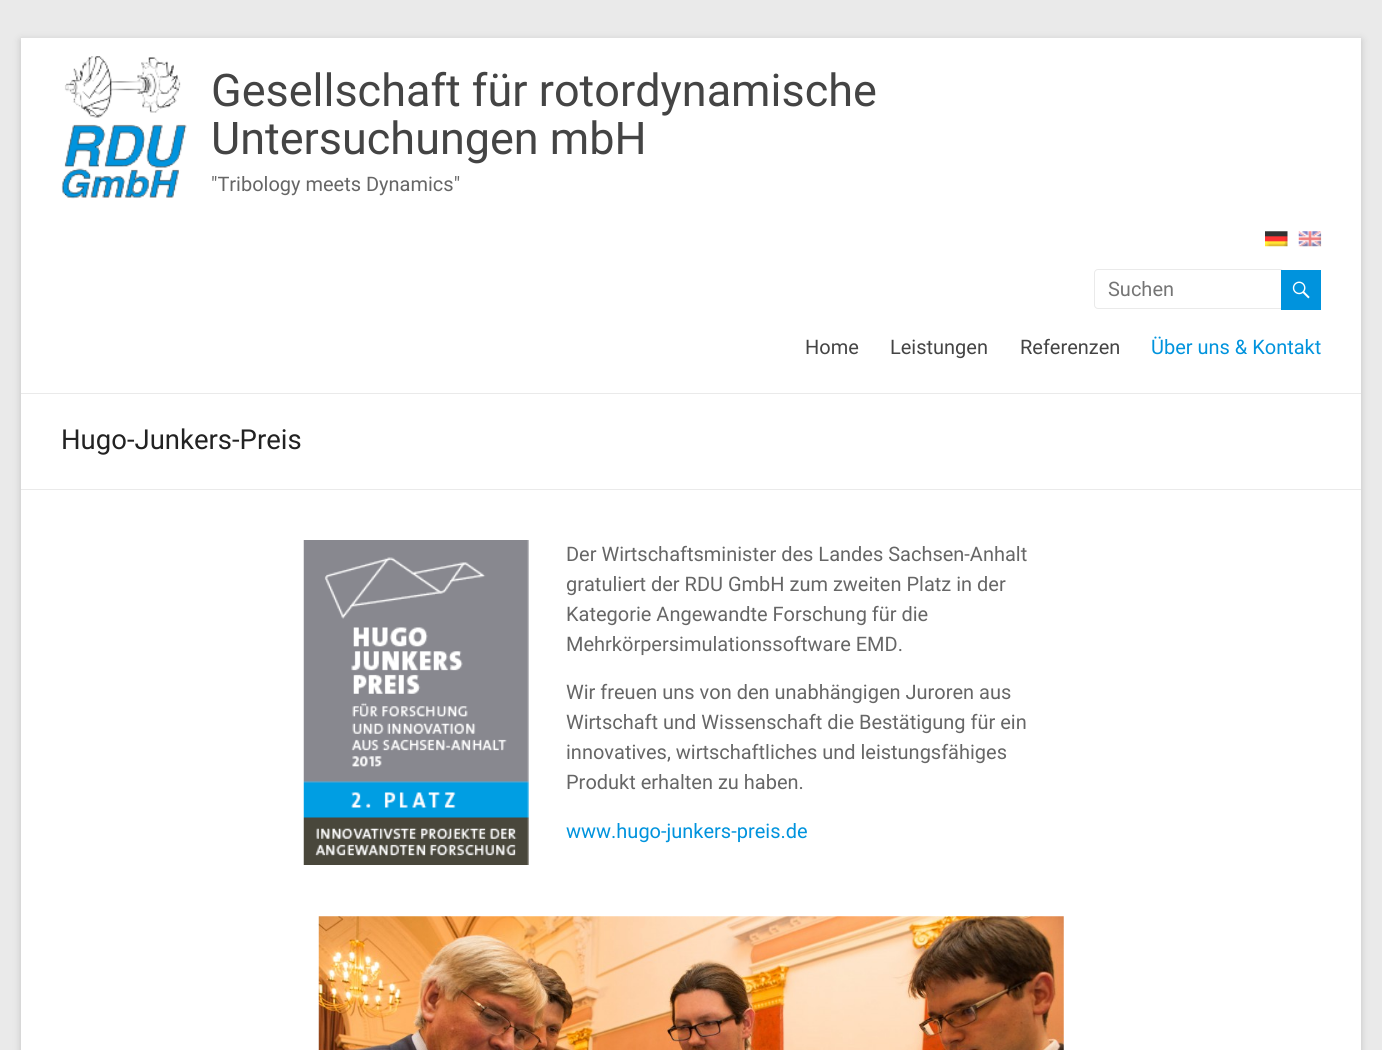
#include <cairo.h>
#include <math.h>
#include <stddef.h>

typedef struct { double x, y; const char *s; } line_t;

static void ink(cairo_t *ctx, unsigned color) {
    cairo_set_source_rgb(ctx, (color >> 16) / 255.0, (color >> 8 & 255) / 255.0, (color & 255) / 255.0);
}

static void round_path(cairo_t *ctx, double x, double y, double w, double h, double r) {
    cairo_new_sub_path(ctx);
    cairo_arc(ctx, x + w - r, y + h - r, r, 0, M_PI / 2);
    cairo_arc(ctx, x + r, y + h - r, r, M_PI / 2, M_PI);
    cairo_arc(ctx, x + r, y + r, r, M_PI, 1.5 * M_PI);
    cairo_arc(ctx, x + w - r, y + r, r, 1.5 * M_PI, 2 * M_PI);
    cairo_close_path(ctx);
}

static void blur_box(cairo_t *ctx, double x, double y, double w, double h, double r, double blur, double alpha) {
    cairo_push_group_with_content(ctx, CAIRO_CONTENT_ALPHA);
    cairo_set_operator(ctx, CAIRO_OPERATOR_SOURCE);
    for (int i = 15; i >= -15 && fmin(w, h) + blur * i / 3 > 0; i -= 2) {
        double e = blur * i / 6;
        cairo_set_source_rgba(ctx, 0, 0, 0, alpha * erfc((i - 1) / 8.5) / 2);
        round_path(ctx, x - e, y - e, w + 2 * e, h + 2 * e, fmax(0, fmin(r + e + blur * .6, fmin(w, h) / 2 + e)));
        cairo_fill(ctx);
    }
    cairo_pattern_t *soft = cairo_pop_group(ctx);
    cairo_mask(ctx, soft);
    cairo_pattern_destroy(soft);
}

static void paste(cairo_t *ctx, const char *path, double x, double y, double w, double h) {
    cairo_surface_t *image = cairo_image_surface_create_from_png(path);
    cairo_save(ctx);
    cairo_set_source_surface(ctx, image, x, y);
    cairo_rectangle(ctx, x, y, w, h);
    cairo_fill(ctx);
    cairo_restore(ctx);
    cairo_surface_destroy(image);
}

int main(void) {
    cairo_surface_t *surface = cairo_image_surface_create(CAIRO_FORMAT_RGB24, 1382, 1050);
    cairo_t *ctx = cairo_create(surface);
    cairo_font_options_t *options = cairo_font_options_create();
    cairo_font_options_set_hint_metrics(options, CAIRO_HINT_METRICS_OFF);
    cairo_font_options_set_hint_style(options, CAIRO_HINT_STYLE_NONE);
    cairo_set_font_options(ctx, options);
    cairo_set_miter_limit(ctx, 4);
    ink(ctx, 0xEAEAEA);
    cairo_paint(ctx);
    ink(ctx, 0x646464);
    blur_box(ctx, 21, 40, 1340, 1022, 0, 4, 0.3);
    ink(ctx, 0xFFFFFF);
    cairo_rectangle(ctx, 21, 38, 1340, 1012);
    cairo_fill(ctx);
    ink(ctx, 0xEAEAEA);
    cairo_rectangle(ctx, 21, 393, 1340, 1);
    cairo_fill(ctx);
    paste(ctx, "media/1.png", 61, 56, 126, 143);
    cairo_select_font_face(ctx, "Roboto", CAIRO_FONT_SLANT_NORMAL, CAIRO_FONT_WEIGHT_NORMAL);
    cairo_set_font_size(ctx, 45);
    ink(ctx, 0x444444);
    cairo_move_to(ctx, 211, 106);
    cairo_show_text(ctx, "Gesellschaft für rotordynamische");
    cairo_move_to(ctx, 211, 154);
    cairo_show_text(ctx, "Untersuchungen mbH");
    cairo_set_font_size(ctx, 20);
    ink(ctx, 0x666666);
    cairo_move_to(ctx, 211, 191);
    cairo_show_text(ctx, "\"Tribology meets Dynamics\"");
    paste(ctx, "media/2.png", 1265, 231, 23, 16);
    paste(ctx, "media/3.png", 1298, 231, 24, 16);
    round_path(ctx, 1094.5, 269.5, 189, 39, 3.5);
    ink(ctx, 0xEAEAEA);
    cairo_set_line_width(ctx, 1);
    cairo_stroke(ctx);
    ink(ctx, 0x757575);
    cairo_move_to(ctx, 1108, 296);
    cairo_show_text(ctx, "Suchen");
    ink(ctx, 0x0093DD);
    cairo_rectangle(ctx, 1281, 270, 40, 40);
    cairo_fill(ctx);
    paste(ctx, "media/4.png", 1292, 281, 18, 18);
    ink(ctx, 0x444444);
    {
        static const line_t items[] = {
            {805, 354, "Home"},
            {890, 354, "Leistungen"},
            {1020, 354, "Referenzen"},
        };
        for (size_t i = 0; i < sizeof items / sizeof *items; i++) {
            cairo_move_to(ctx, items[i].x, items[i].y);
            cairo_show_text(ctx, items[i].s);
        }
    }
    ink(ctx, 0x0093DD);
    cairo_move_to(ctx, 1151, 354);
    cairo_show_text(ctx, "Über uns & Kontakt");
    ink(ctx, 0xEAEAEA);
    cairo_rectangle(ctx, 21, 489, 1340, 1);
    cairo_fill(ctx);
    cairo_set_font_size(ctx, 27.5);
    ink(ctx, 0x222222);
    cairo_move_to(ctx, 61, 449);
    cairo_show_text(ctx, "Hugo-Junkers-Preis");
    paste(ctx, "media/5.png", 303, 540, 226, 325);
    cairo_set_font_size(ctx, 20);
    ink(ctx, 0x666666);
    {
        static const line_t items[] = {
            {566, 561, "Der Wirtschaftsminister des Landes Sachsen-Anhalt"},
            {566, 591, "gratuliert der RDU GmbH zum zweiten Platz in der"},
            {566, 621, "Kategorie Angewandte Forschung für die"},
            {566, 651, "Mehrkörpersimulationssoftware EMD."},
            {566, 699, "Wir freuen uns von den unabhängigen Juroren aus"},
            {566, 729, "Wirtschaft und Wissenschaft die Bestätigung für ein"},
            {566, 759, "innovatives, wirtschaftliches und leistungsfähiges"},
            {566, 789, "Produkt erhalten zu haben."},
        };
        for (size_t i = 0; i < sizeof items / sizeof *items; i++) {
            cairo_move_to(ctx, items[i].x, items[i].y);
            cairo_show_text(ctx, items[i].s);
        }
    }
    ink(ctx, 0x0093DD);
    cairo_move_to(ctx, 566, 838);
    cairo_show_text(ctx, "www.hugo-junkers-preis.de");
    paste(ctx, "media/6.png", 318, 916, 746, 134);
    cairo_surface_write_to_png(surface, "image.png");
    cairo_font_options_destroy(options);
    cairo_destroy(ctx);
    cairo_surface_destroy(surface);
    return 0;
}
